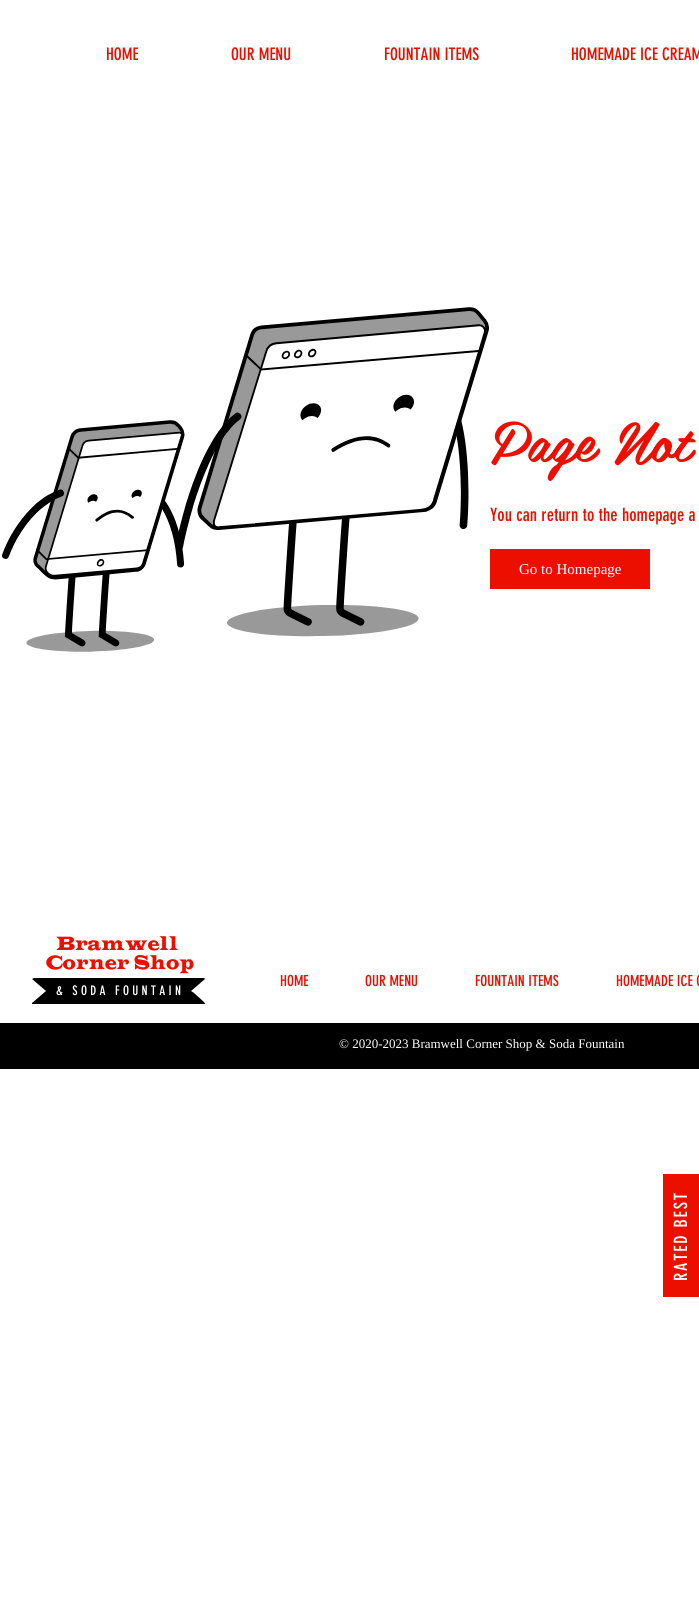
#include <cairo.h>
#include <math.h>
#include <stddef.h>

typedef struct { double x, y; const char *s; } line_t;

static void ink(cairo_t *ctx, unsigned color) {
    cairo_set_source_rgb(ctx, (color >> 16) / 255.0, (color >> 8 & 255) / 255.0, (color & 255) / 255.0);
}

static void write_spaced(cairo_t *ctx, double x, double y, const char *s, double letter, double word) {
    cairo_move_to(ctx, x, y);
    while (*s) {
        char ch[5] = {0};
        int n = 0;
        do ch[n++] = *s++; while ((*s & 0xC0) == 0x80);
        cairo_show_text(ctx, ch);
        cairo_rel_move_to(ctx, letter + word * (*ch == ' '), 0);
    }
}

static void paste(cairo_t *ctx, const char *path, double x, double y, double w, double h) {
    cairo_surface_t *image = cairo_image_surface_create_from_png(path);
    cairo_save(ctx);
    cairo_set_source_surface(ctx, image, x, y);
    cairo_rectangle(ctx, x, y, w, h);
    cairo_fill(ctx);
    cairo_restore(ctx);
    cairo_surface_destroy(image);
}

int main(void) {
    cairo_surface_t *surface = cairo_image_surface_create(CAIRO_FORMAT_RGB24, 699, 1597);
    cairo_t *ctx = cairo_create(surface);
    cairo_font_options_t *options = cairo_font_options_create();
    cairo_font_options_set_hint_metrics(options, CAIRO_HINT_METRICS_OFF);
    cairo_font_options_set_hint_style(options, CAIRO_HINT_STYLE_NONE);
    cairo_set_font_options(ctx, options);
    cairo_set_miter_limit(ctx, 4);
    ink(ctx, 0xFFFFFF);
    cairo_paint(ctx);
    cairo_select_font_face(ctx, "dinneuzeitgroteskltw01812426", CAIRO_FONT_SLANT_NORMAL, CAIRO_FONT_WEIGHT_NORMAL);
    cairo_set_font_size(ctx, 17);
    ink(ctx, 0xEC0F00);
    {
        static const line_t items[] = {
            {106, 60, "HOME"},
            {231, 60, "OUR MENU"},
            {384, 60, "FOUNTAIN ITEMS"},
            {571, 60, "HOMEMADE ICE CREAM"},
        };
        for (size_t i = 0; i < sizeof items / sizeof *items; i++) {
            cairo_move_to(ctx, items[i].x, items[i].y);
            cairo_show_text(ctx, items[i].s);
        }
    }
    paste(ctx, "media/1.png", 2, 307, 487, 345);
    cairo_select_font_face(ctx, "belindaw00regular", CAIRO_FONT_SLANT_NORMAL, CAIRO_FONT_WEIGHT_NORMAL);
    cairo_set_font_size(ctx, 56);
    cairo_move_to(ctx, 490, 462);
    cairo_show_text(ctx, "Page Not");
    cairo_select_font_face(ctx, "dinneuzeitgroteskltw01812426", CAIRO_FONT_SLANT_NORMAL, CAIRO_FONT_WEIGHT_NORMAL);
    cairo_set_font_size(ctx, 18);
    cairo_move_to(ctx, 490, 521);
    cairo_show_text(ctx, "You can return to the homepage a");
    cairo_rectangle(ctx, 490, 549, 160, 40);
    cairo_fill(ctx);
    cairo_select_font_face(ctx, "Liberation Serif", CAIRO_FONT_SLANT_NORMAL, CAIRO_FONT_WEIGHT_NORMAL);
    cairo_set_font_size(ctx, 15);
    ink(ctx, 0xFFFFFF);
    cairo_move_to(ctx, 519, 574);
    cairo_show_text(ctx, "Go to Homepage");
    cairo_select_font_face(ctx, "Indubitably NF", CAIRO_FONT_SLANT_NORMAL, CAIRO_FONT_WEIGHT_NORMAL);
    cairo_set_font_size(ctx, 20);
    ink(ctx, 0xEC0F00);
    cairo_move_to(ctx, 56, 950);
    cairo_show_text(ctx, "Bramwell");
    cairo_move_to(ctx, 46, 969);
    cairo_show_text(ctx, "Corner Shop");
    ink(ctx, 0x000000);
    cairo_new_path(ctx);
    cairo_move_to(ctx, 205, 979);
    cairo_curve_to(ctx, 206, 979, 204, 978, 203, 978);
    cairo_line_to(ctx, 34, 978);
    cairo_line_to(ctx, 32, 979);
    cairo_line_to(ctx, 46, 991);
    cairo_line_to(ctx, 32, 1003);
    cairo_line_to(ctx, 32, 1004);
    cairo_line_to(ctx, 34, 1004);
    cairo_line_to(ctx, 205, 1004);
    cairo_curve_to(ctx, 206, 1003, 197, 996, 194, 993);
    cairo_line_to(ctx, 191, 991);
    cairo_close_path(ctx);
    cairo_fill(ctx);
    cairo_select_font_face(ctx, "dinneuzeitgroteskltw01812426", CAIRO_FONT_SLANT_NORMAL, CAIRO_FONT_WEIGHT_NORMAL);
    cairo_set_font_size(ctx, 13);
    ink(ctx, 0xFFFFFF);
    write_spaced(ctx, 56, 995, "& SODA FOUNTAIN", 3.25, 0);
    cairo_set_font_size(ctx, 15);
    ink(ctx, 0xEC0F00);
    {
        static const line_t items[] = {
            {280, 986, "HOME"},
            {365, 986, "OUR MENU"},
            {475, 986, "FOUNTAIN ITEMS"},
            {616, 986, "HOMEMADE ICE C"},
        };
        for (size_t i = 0; i < sizeof items / sizeof *items; i++) {
            cairo_move_to(ctx, items[i].x, items[i].y);
            cairo_show_text(ctx, items[i].s);
        }
    }
    ink(ctx, 0x000000);
    cairo_rectangle(ctx, 0, 1023, 699, 46);
    cairo_fill(ctx);
    cairo_select_font_face(ctx, "Liberation Serif", CAIRO_FONT_SLANT_NORMAL, CAIRO_FONT_WEIGHT_NORMAL);
    cairo_set_font_size(ctx, 13);
    ink(ctx, 0xFFFFFF);
    cairo_move_to(ctx, 339, 1048);
    cairo_show_text(ctx, "© 2020-2023 Bramwell Corner Shop & Soda Fountain");
    ink(ctx, 0xEC0F00);
    cairo_rectangle(ctx, 663, 1174, 36, 123);
    cairo_fill(ctx);
    cairo_select_font_face(ctx, "dinneuzeitgroteskltw01812426", CAIRO_FONT_SLANT_NORMAL, CAIRO_FONT_WEIGHT_NORMAL);
    cairo_set_font_size(ctx, 18);
    ink(ctx, 0xFFFFFF);
    cairo_save(ctx);
    cairo_translate(ctx, 687, 1281);
    cairo_rotate(ctx, -90 * M_PI / 180);
    write_spaced(ctx, 0, 0, "RATED BEST", 1.75, 0);
    cairo_restore(ctx);
    cairo_surface_write_to_png(surface, "image.png");
    cairo_font_options_destroy(options);
    cairo_destroy(ctx);
    cairo_surface_destroy(surface);
    return 0;
}
